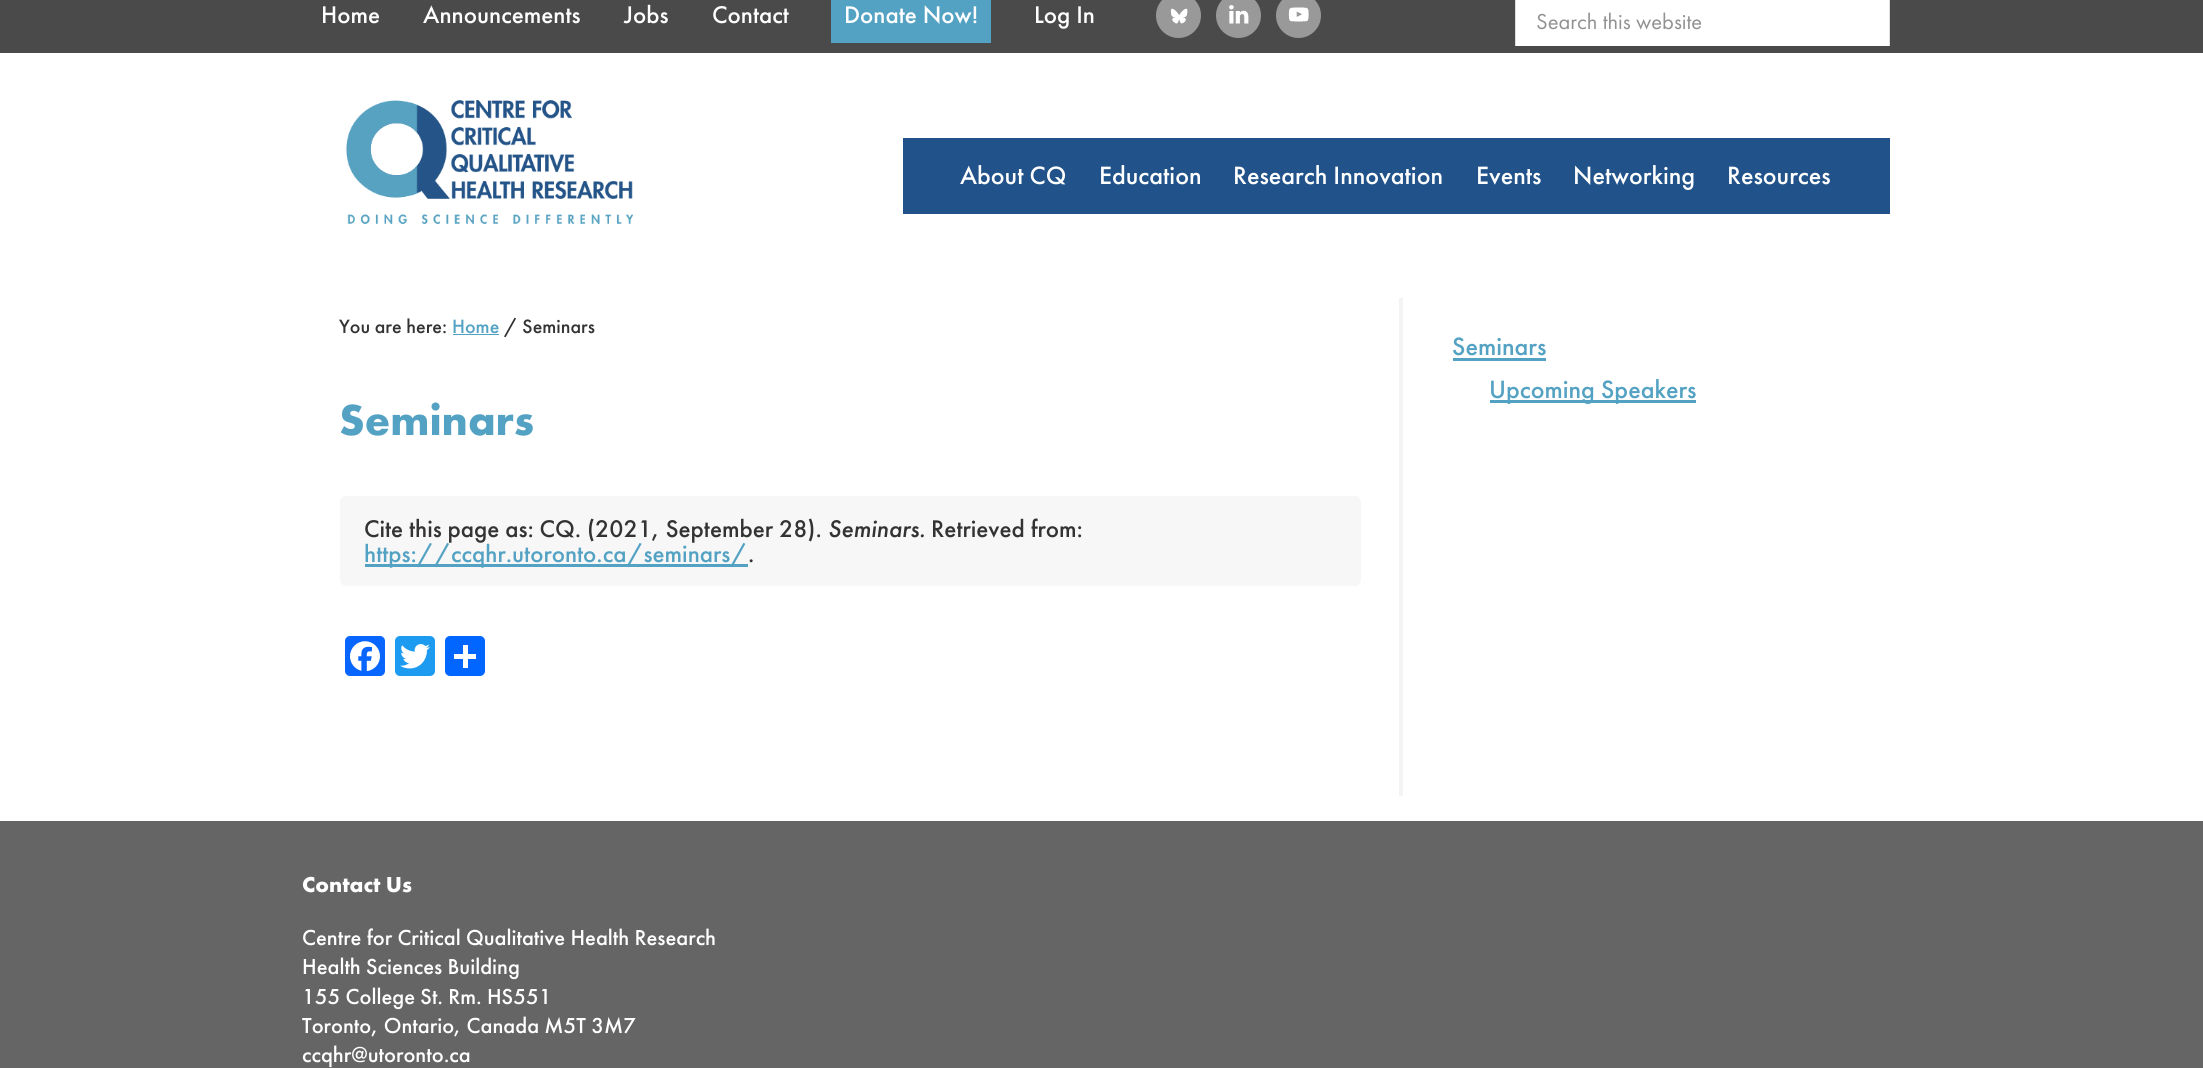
#include <cairo.h>
#include <math.h>
#include <stddef.h>

typedef struct { double x, y; const char *s; } line_t;

static void ink(cairo_t *ctx, unsigned color) {
    cairo_set_source_rgb(ctx, (color >> 16) / 255.0, (color >> 8 & 255) / 255.0, (color & 255) / 255.0);
}

static void round_path(cairo_t *ctx, double x, double y, double w, double h, double r) {
    cairo_new_sub_path(ctx);
    cairo_arc(ctx, x + w - r, y + h - r, r, 0, M_PI / 2);
    cairo_arc(ctx, x + r, y + h - r, r, M_PI / 2, M_PI);
    cairo_arc(ctx, x + r, y + r, r, M_PI, 1.5 * M_PI);
    cairo_arc(ctx, x + w - r, y + r, r, 1.5 * M_PI, 2 * M_PI);
    cairo_close_path(ctx);
}

static void paste(cairo_t *ctx, const char *path, double x, double y, double w, double h) {
    cairo_surface_t *image = cairo_image_surface_create_from_png(path);
    cairo_save(ctx);
    cairo_set_source_surface(ctx, image, x, y);
    cairo_rectangle(ctx, x, y, w, h);
    cairo_fill(ctx);
    cairo_restore(ctx);
    cairo_surface_destroy(image);
}

int main(void) {
    cairo_surface_t *surface = cairo_image_surface_create(CAIRO_FORMAT_RGB24, 2203, 1068);
    cairo_t *ctx = cairo_create(surface);
    cairo_font_options_t *options = cairo_font_options_create();
    cairo_font_options_set_hint_metrics(options, CAIRO_HINT_METRICS_OFF);
    cairo_font_options_set_hint_style(options, CAIRO_HINT_STYLE_NONE);
    cairo_set_font_options(ctx, options);
    cairo_set_miter_limit(ctx, 4);
    ink(ctx, 0xFFFFFF);
    cairo_paint(ctx);
    ink(ctx, 0x4A4A4A);
    cairo_rectangle(ctx, 0, 0, 2203, 53);
    cairo_fill(ctx);
    cairo_select_font_face(ctx, "Futura PT Medium", CAIRO_FONT_SLANT_NORMAL, CAIRO_FONT_WEIGHT_NORMAL);
    cairo_set_font_size(ctx, 25);
    ink(ctx, 0xFFFFFF);
    {
        static const line_t items[] = {
            {321, 23, "Home"},
            {423, 23, "Announcements"},
            {624, 23, "Jobs"},
            {712, 23, "Contact"},
        };
        for (size_t i = 0; i < sizeof items / sizeof *items; i++) {
            cairo_move_to(ctx, items[i].x, items[i].y);
            cairo_show_text(ctx, items[i].s);
        }
    }
    ink(ctx, 0x54A2C3);
    cairo_rectangle(ctx, 831, 0, 160, 43);
    cairo_fill(ctx);
    ink(ctx, 0xFFFFFF);
    cairo_move_to(ctx, 844, 23);
    cairo_show_text(ctx, "Donate Now!");
    cairo_move_to(ctx, 1034, 23);
    cairo_show_text(ctx, "Log In");
    ink(ctx, 0x999999);
    cairo_new_path(ctx);
    cairo_arc(ctx, 1178.5, 15.5, 22.5, 0, 2 * M_PI);
    cairo_fill(ctx);
    paste(ctx, "media/1.png", 1170, 8, 18, 16);
    cairo_arc(ctx, 1238.5, 15.5, 22.5, 0, 2 * M_PI);
    cairo_fill(ctx);
    paste(ctx, "media/2.png", 1229, 5, 20, 19);
    cairo_arc(ctx, 1298.5, 15.5, 22.5, 0, 2 * M_PI);
    cairo_fill(ctx);
    paste(ctx, "media/3.png", 1288, 7, 21, 15);
    ink(ctx, 0xFFFFFF);
    cairo_rectangle(ctx, 1516, 0, 373, 46);
    cairo_fill(ctx);
    cairo_save(ctx);
    cairo_rectangle(ctx, 1515, 0, 375, 46);
    cairo_clip(ctx);
    cairo_rectangle(ctx, 1515.5, -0.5, 374, 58);
    ink(ctx, 0xDDDDDD);
    cairo_set_line_width(ctx, 1);
    cairo_stroke(ctx);
    cairo_restore(ctx);
    cairo_select_font_face(ctx, "Futura PT", CAIRO_FONT_SLANT_NORMAL, CAIRO_FONT_WEIGHT_NORMAL);
    cairo_set_font_size(ctx, 22.5);
    ink(ctx, 0x919191);
    cairo_move_to(ctx, 1536, 29);
    cairo_show_text(ctx, "Search this website");
    paste(ctx, "media/4.png", 346, 100, 288, 125);
    ink(ctx, 0x21538A);
    cairo_rectangle(ctx, 903, 138, 987, 76);
    cairo_fill(ctx);
    cairo_select_font_face(ctx, "Futura PT Medium", CAIRO_FONT_SLANT_NORMAL, CAIRO_FONT_WEIGHT_NORMAL);
    cairo_set_font_size(ctx, 26);
    ink(ctx, 0xFFFFFF);
    {
        static const line_t items[] = {
            {960, 184, "About CQ"},
            {1099, 184, "Education"},
            {1233, 184, "Research Innovation"},
            {1476, 184, "Events"},
            {1573, 184, "Networking"},
            {1727, 184, "Resources"},
        };
        for (size_t i = 0; i < sizeof items / sizeof *items; i++) {
            cairo_move_to(ctx, items[i].x, items[i].y);
            cairo_show_text(ctx, items[i].s);
        }
    }
    ink(ctx, 0xF4F4F4);
    cairo_rectangle(ctx, 1399, 298, 4, 498);
    cairo_fill(ctx);
    cairo_set_font_size(ctx, 20);
    ink(ctx, 0x333333);
    cairo_move_to(ctx, 339, 333);
    cairo_show_text(ctx, "You are here:");
    ink(ctx, 0x54A2C3);
    cairo_move_to(ctx, 452, 333);
    cairo_show_text(ctx, "Home");
    cairo_rectangle(ctx, 453, 334, 46, 1);
    cairo_fill(ctx);
    ink(ctx, 0x333333);
    cairo_move_to(ctx, 504, 333);
    cairo_show_text(ctx, "/ Seminars");
    cairo_select_font_face(ctx, "Futura PT", CAIRO_FONT_SLANT_NORMAL, CAIRO_FONT_WEIGHT_BOLD);
    cairo_set_font_size(ctx, 45);
    ink(ctx, 0x54A2C3);
    cairo_move_to(ctx, 339, 435);
    cairo_show_text(ctx, "Seminars");
    ink(ctx, 0xF7F7F7);
    round_path(ctx, 340, 496, 1021, 90, 6);
    cairo_fill(ctx);
    cairo_select_font_face(ctx, "Futura PT Medium", CAIRO_FONT_SLANT_NORMAL, CAIRO_FONT_WEIGHT_NORMAL);
    cairo_set_font_size(ctx, 25);
    ink(ctx, 0x333333);
    cairo_move_to(ctx, 364, 537);
    cairo_show_text(ctx, "Cite this page as: CQ. (2021, September 28).");
    cairo_select_font_face(ctx, "Futura PT Medium", CAIRO_FONT_SLANT_ITALIC, CAIRO_FONT_WEIGHT_NORMAL);
    cairo_move_to(ctx, 828, 537);
    cairo_show_text(ctx, "Seminars.");
    cairo_select_font_face(ctx, "Futura PT Medium", CAIRO_FONT_SLANT_NORMAL, CAIRO_FONT_WEIGHT_NORMAL);
    cairo_move_to(ctx, 931, 537);
    cairo_show_text(ctx, "Retrieved from:");
    ink(ctx, 0x54A2C3);
    cairo_rectangle(ctx, 365, 564, 383, 3);
    cairo_fill(ctx);
    cairo_move_to(ctx, 364, 562);
    cairo_show_text(ctx, "https://ccqhr.utoronto.ca/seminars/");
    ink(ctx, 0x333333);
    cairo_move_to(ctx, 748, 562);
    cairo_show_text(ctx, ".");
    ink(ctx, 0x0866FF);
    round_path(ctx, 345, 636, 40, 40, 5);
    cairo_fill(ctx);
    paste(ctx, "media/5.png", 350, 641, 30, 31);
    ink(ctx, 0x1D9BF0);
    round_path(ctx, 395, 636, 40, 40, 5);
    cairo_fill(ctx);
    paste(ctx, "media/6.png", 400, 644, 30, 25);
    ink(ctx, 0x0166FF);
    round_path(ctx, 445, 636, 40, 40, 5);
    cairo_fill(ctx);
    ink(ctx, 0xFFFFFF);
    cairo_rectangle(ctx, 463, 645, 5, 23);
    cairo_fill(ctx);
    cairo_rectangle(ctx, 454, 654, 22, 5);
    cairo_fill(ctx);
    cairo_set_font_size(ctx, 26);
    ink(ctx, 0x54A2C3);
    cairo_move_to(ctx, 1452, 355);
    cairo_show_text(ctx, "Seminars");
    cairo_rectangle(ctx, 1453, 358, 93, 3);
    cairo_fill(ctx);
    cairo_rectangle(ctx, 1490, 400, 206, 3);
    cairo_fill(ctx);
    cairo_move_to(ctx, 1489, 398);
    cairo_show_text(ctx, "Upcoming Speakers");
    ink(ctx, 0x656565);
    cairo_rectangle(ctx, 0, 821, 2203, 247);
    cairo_fill(ctx);
    cairo_select_font_face(ctx, "Futura PT", CAIRO_FONT_SLANT_NORMAL, CAIRO_FONT_WEIGHT_BOLD);
    cairo_set_font_size(ctx, 22.5);
    ink(ctx, 0xFFFFFF);
    cairo_move_to(ctx, 302, 892);
    cairo_show_text(ctx, "Contact Us");
    cairo_select_font_face(ctx, "Futura PT Medium", CAIRO_FONT_SLANT_NORMAL, CAIRO_FONT_WEIGHT_NORMAL);
    {
        static const line_t items[] = {
            {302, 945, "Centre for Critical Qualitative Health Research"},
            {302, 974, "Health Sciences Building"},
            {302, 1004, "155 College St. Rm. HS551"},
            {302, 1033, "Toronto, Ontario, Canada M5T 3M7"},
            {302, 1062, "ccqhr@utoronto.ca"},
        };
        for (size_t i = 0; i < sizeof items / sizeof *items; i++) {
            cairo_move_to(ctx, items[i].x, items[i].y);
            cairo_show_text(ctx, items[i].s);
        }
    }
    cairo_surface_write_to_png(surface, "image.png");
    cairo_font_options_destroy(options);
    cairo_destroy(ctx);
    cairo_surface_destroy(surface);
    return 0;
}
